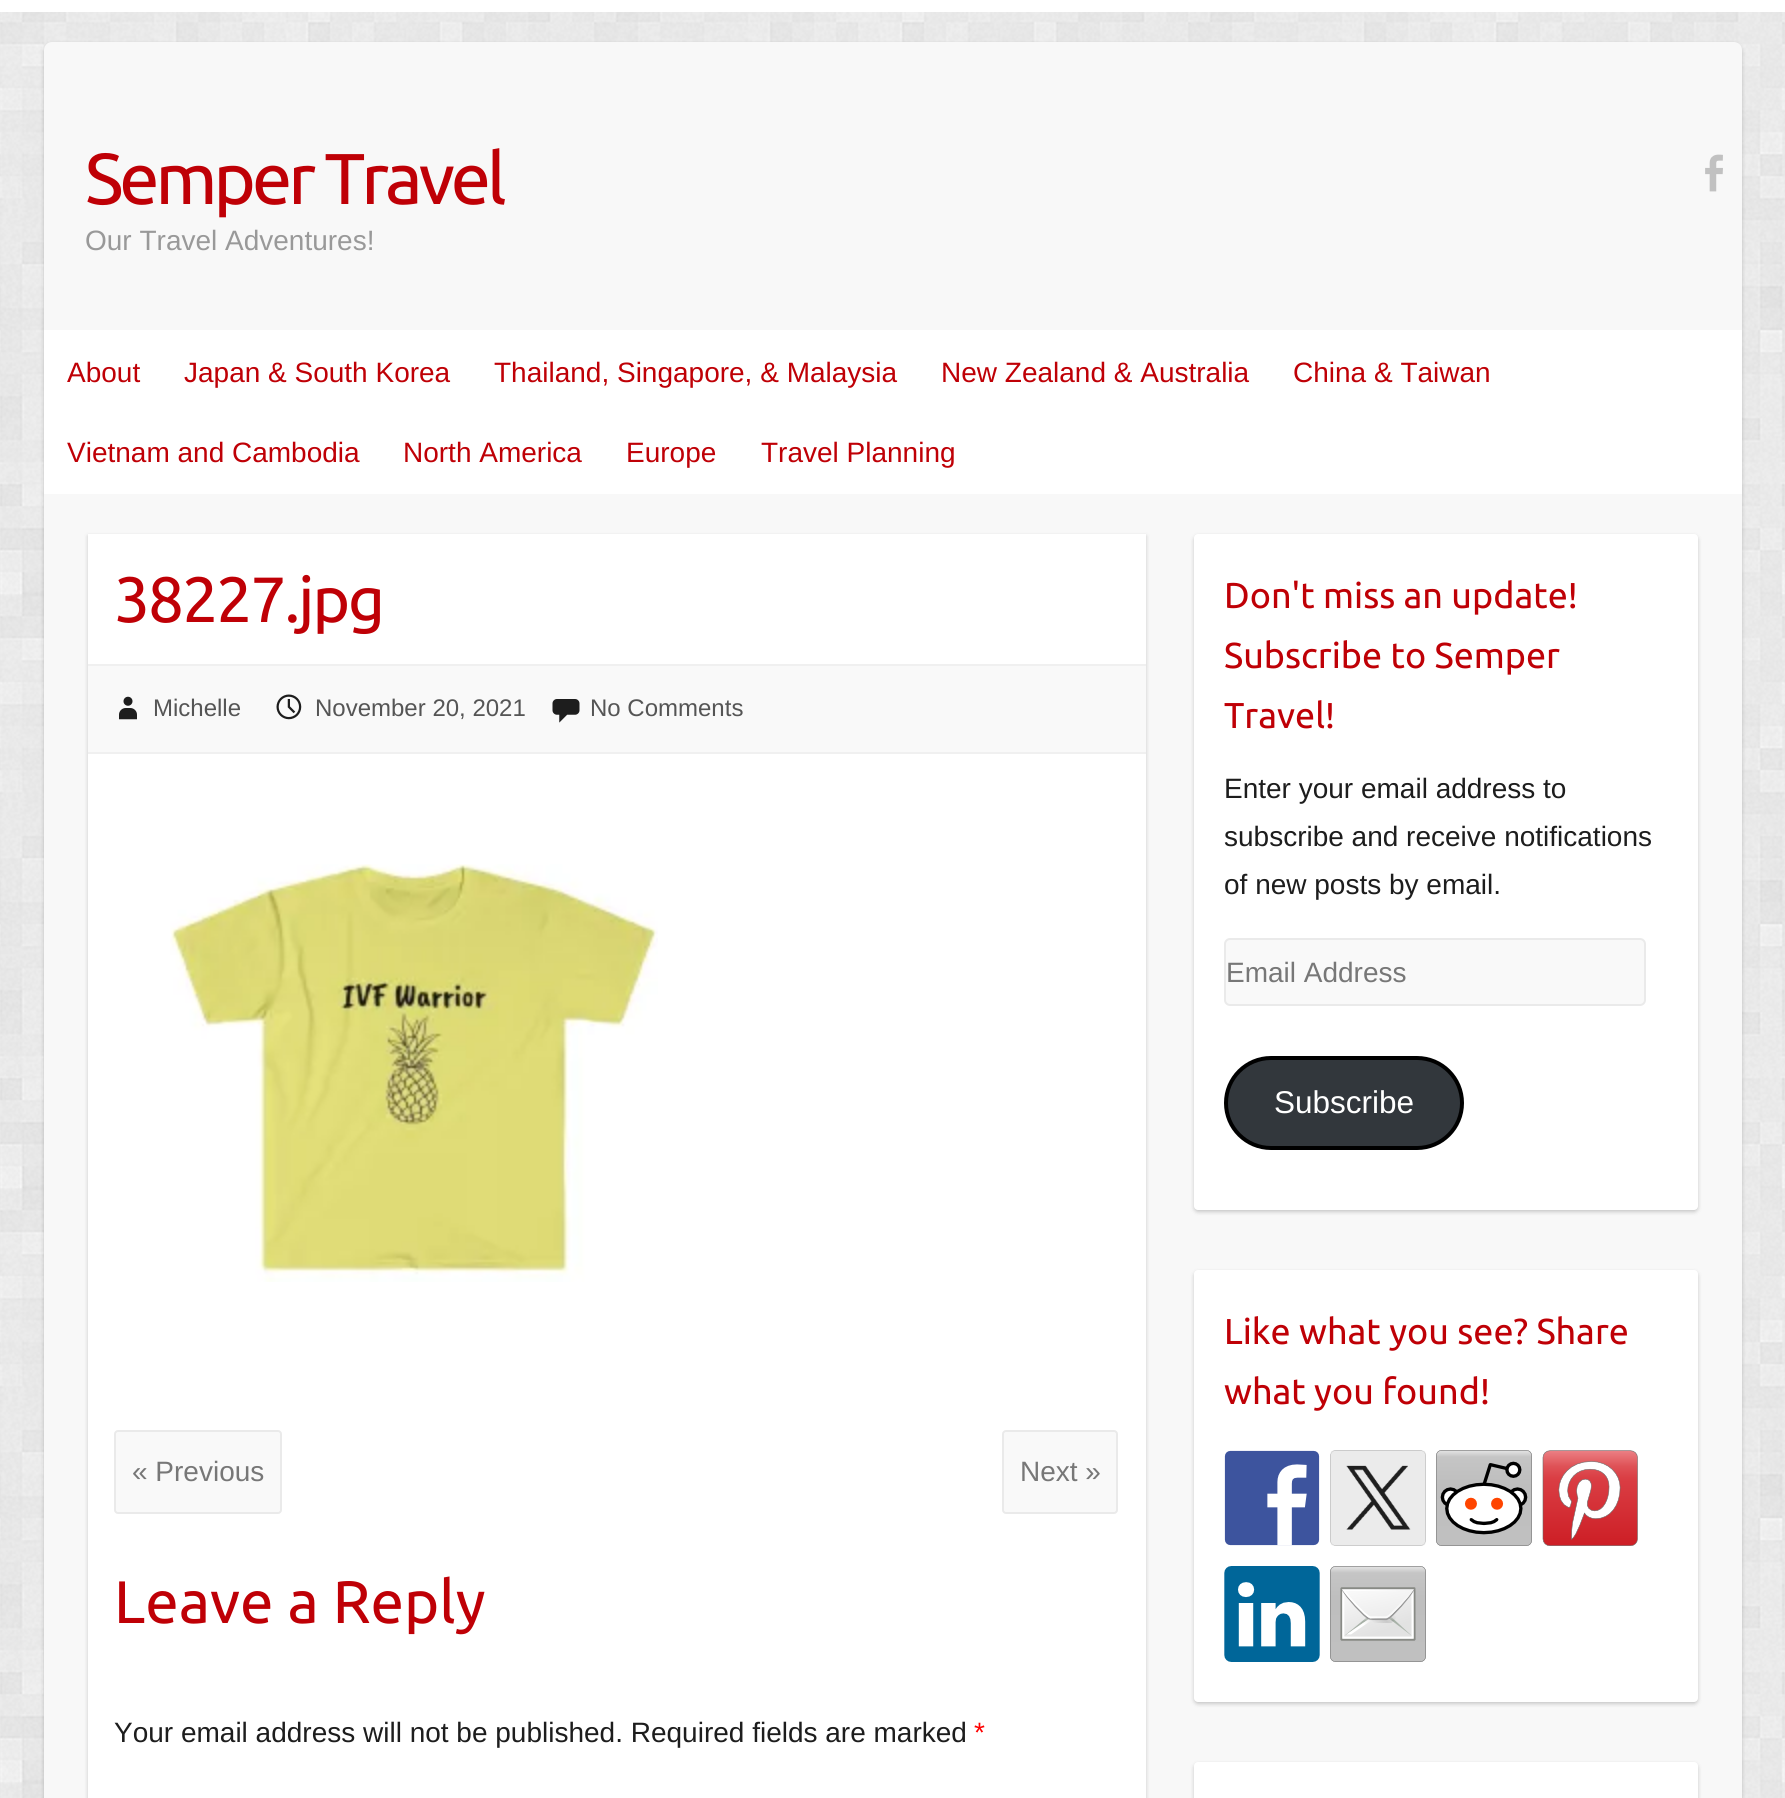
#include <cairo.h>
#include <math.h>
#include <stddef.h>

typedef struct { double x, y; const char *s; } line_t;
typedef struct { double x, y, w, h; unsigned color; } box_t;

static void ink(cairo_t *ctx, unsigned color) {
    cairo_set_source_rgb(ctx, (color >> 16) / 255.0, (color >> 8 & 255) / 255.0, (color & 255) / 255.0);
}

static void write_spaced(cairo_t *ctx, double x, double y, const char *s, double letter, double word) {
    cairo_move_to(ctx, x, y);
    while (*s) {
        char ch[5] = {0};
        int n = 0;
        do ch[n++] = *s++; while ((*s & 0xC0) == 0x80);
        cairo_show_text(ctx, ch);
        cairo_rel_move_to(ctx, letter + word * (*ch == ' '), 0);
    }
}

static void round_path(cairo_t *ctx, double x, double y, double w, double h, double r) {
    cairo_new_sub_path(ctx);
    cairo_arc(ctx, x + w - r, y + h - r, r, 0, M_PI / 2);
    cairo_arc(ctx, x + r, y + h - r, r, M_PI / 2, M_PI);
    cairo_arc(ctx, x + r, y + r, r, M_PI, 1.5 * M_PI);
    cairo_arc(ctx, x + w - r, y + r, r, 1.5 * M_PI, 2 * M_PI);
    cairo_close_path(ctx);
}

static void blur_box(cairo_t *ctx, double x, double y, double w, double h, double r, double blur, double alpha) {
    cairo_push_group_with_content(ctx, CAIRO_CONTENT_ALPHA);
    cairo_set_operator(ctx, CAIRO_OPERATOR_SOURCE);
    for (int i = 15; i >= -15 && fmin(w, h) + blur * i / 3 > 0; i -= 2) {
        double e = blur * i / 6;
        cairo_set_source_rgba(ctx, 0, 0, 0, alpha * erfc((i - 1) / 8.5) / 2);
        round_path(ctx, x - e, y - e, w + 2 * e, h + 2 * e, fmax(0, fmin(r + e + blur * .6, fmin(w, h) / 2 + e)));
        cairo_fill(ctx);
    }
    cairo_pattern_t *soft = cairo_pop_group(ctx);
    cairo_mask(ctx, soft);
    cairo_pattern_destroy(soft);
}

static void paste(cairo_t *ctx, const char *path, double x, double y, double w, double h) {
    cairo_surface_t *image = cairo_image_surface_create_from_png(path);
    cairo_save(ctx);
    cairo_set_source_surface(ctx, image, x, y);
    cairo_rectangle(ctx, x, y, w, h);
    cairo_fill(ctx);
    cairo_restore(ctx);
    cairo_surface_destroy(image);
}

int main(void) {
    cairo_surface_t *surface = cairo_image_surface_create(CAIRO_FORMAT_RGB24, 1785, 1798);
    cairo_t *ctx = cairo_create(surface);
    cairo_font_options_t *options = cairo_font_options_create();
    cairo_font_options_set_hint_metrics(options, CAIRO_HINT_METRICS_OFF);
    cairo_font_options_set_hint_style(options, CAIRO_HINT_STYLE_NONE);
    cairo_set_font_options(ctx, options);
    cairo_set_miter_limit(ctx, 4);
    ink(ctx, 0xFFFFFF);
    cairo_paint(ctx);
    paste(ctx, "media/1.png", 0, 12, 1785, 1786);
    ink(ctx, 0x000000);
    blur_box(ctx, 44, 44, 1698, 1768, 8, 2, 0.2);
    ink(ctx, 0xF8F8F8);
    round_path(ctx, 44, 42, 1698, 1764, 8);
    cairo_fill(ctx);
    cairo_select_font_face(ctx, "Ubuntu", CAIRO_FONT_SLANT_NORMAL, CAIRO_FONT_WEIGHT_NORMAL);
    cairo_set_font_size(ctx, 72);
    ink(ctx, 0xBF0006);
    write_spaced(ctx, 85, 204, "Semper Travel", -4, 0);
    cairo_select_font_face(ctx, "Liberation Sans", CAIRO_FONT_SLANT_NORMAL, CAIRO_FONT_WEIGHT_NORMAL);
    cairo_set_font_size(ctx, 28);
    ink(ctx, 0x999999);
    cairo_move_to(ctx, 85, 250);
    cairo_show_text(ctx, "Our Travel Adventures!");
    paste(ctx, "media/2.png", 1705, 154, 18, 38);
    ink(ctx, 0xFFFFFF);
    cairo_rectangle(ctx, 44, 330, 1698, 164);
    cairo_fill(ctx);
    ink(ctx, 0xBF0006);
    {
        static const line_t items[] = {
            {67, 382, "About"},
            {184, 382, "Japan & South Korea"},
            {494, 382, "Thailand, Singapore, & Malaysia"},
            {941, 382, "New Zealand & Australia"},
            {1293, 382, "China & Taiwan"},
            {67, 462, "Vietnam and Cambodia"},
            {403, 462, "North America"},
            {626, 462, "Europe"},
            {761, 462, "Travel Planning"},
        };
        for (size_t i = 0; i < sizeof items / sizeof *items; i++) {
            cairo_move_to(ctx, items[i].x, items[i].y);
            cairo_show_text(ctx, items[i].s);
        }
    }
    ink(ctx, 0x000000);
    blur_box(ctx, 88, 536, 1058, 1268, 0, 2, 0.2);
    ink(ctx, 0xFFFFFF);
    cairo_rectangle(ctx, 88, 534, 1058, 1264);
    cairo_fill(ctx);
    cairo_select_font_face(ctx, "Ubuntu", CAIRO_FONT_SLANT_NORMAL, CAIRO_FONT_WEIGHT_NORMAL);
    cairo_set_font_size(ctx, 64);
    ink(ctx, 0xBF0006);
    write_spaced(ctx, 114, 622, "38227.jpg", -2, 0);
    {
        static const box_t items[] = {
            {88, 666, 1058, 86, 0xF9F9F9},
            {88, 664, 1058, 2, 0xF0F0F0},
            {88, 752, 1058, 2, 0xF0F0F0},
        };
        for (size_t i = 0; i < sizeof items / sizeof *items; i++) {
            ink(ctx, items[i].color);
            cairo_rectangle(ctx, items[i].x, items[i].y, items[i].w, items[i].h);
            cairo_fill(ctx);
        }
    }
    paste(ctx, "media/3.png", 119, 696, 18, 24);
    cairo_select_font_face(ctx, "Liberation Sans", CAIRO_FONT_SLANT_NORMAL, CAIRO_FONT_WEIGHT_NORMAL);
    cairo_set_font_size(ctx, 24);
    ink(ctx, 0x555555);
    cairo_move_to(ctx, 153, 716);
    cairo_show_text(ctx, "Michelle");
    paste(ctx, "media/4.png", 276, 694, 26, 26);
    cairo_move_to(ctx, 315, 716);
    cairo_show_text(ctx, "November 20, 2021");
    paste(ctx, "media/5.png", 552, 699, 28, 24);
    cairo_move_to(ctx, 590, 716);
    cairo_show_text(ctx, "No Comments");
    paste(ctx, "media/6.png", 170, 864, 488, 418);
    ink(ctx, 0xF9F9F9);
    round_path(ctx, 115, 1431, 166, 82, 3);
    cairo_fill_preserve(ctx);
    ink(ctx, 0xEAEAEA);
    cairo_stroke(ctx);
    cairo_set_font_size(ctx, 28);
    ink(ctx, 0x777777);
    cairo_move_to(ctx, 132, 1481);
    cairo_show_text(ctx, "« Previous");
    ink(ctx, 0xF9F9F9);
    round_path(ctx, 1003, 1431, 114, 82, 3);
    cairo_fill_preserve(ctx);
    ink(ctx, 0xEAEAEA);
    cairo_stroke(ctx);
    ink(ctx, 0x777777);
    cairo_move_to(ctx, 1020, 1481);
    cairo_show_text(ctx, "Next »");
    cairo_select_font_face(ctx, "Ubuntu", CAIRO_FONT_SLANT_NORMAL, CAIRO_FONT_WEIGHT_NORMAL);
    cairo_set_font_size(ctx, 60);
    ink(ctx, 0xBF0006);
    cairo_move_to(ctx, 114, 1623);
    cairo_show_text(ctx, "Leave a Reply");
    cairo_select_font_face(ctx, "Liberation Sans", CAIRO_FONT_SLANT_NORMAL, CAIRO_FONT_WEIGHT_NORMAL);
    cairo_set_font_size(ctx, 28);
    ink(ctx, 0x1D1D1D);
    cairo_move_to(ctx, 114, 1742);
    cairo_show_text(ctx, "Your email address will not be published. Required fields are marked");
    ink(ctx, 0xFF0000);
    cairo_move_to(ctx, 974, 1742);
    cairo_show_text(ctx, "*");
    ink(ctx, 0x000000);
    blur_box(ctx, 1194, 536, 504, 676, 4, 2, 0.2);
    ink(ctx, 0xFFFFFF);
    round_path(ctx, 1194, 534, 504, 676, 4);
    cairo_fill(ctx);
    cairo_select_font_face(ctx, "Ubuntu", CAIRO_FONT_SLANT_NORMAL, CAIRO_FONT_WEIGHT_NORMAL);
    cairo_set_font_size(ctx, 36);
    ink(ctx, 0xBF0006);
    {
        static const line_t items[] = {
            {1224, 608, "Don't miss an update!"},
            {1224, 668, "Subscribe to Semper"},
            {1224, 728, "Travel!"},
        };
        for (size_t i = 0; i < sizeof items / sizeof *items; i++) {
            cairo_move_to(ctx, items[i].x, items[i].y);
            cairo_show_text(ctx, items[i].s);
        }
    }
    cairo_select_font_face(ctx, "Liberation Sans", CAIRO_FONT_SLANT_NORMAL, CAIRO_FONT_WEIGHT_NORMAL);
    cairo_set_font_size(ctx, 28);
    ink(ctx, 0x1D1D1D);
    {
        static const line_t items[] = {
            {1224, 798, "Enter your email address to"},
            {1224, 846, "subscribe and receive notifications"},
            {1224, 894, "of new posts by email."},
        };
        for (size_t i = 0; i < sizeof items / sizeof *items; i++) {
            cairo_move_to(ctx, items[i].x, items[i].y);
            cairo_show_text(ctx, items[i].s);
        }
    }
    ink(ctx, 0xF9F9F9);
    round_path(ctx, 1225, 939, 420, 66, 5);
    cairo_fill_preserve(ctx);
    ink(ctx, 0xEAEAEA);
    cairo_stroke(ctx);
    ink(ctx, 0x777777);
    cairo_move_to(ctx, 1226, 982);
    cairo_show_text(ctx, "Email Address");
    ink(ctx, 0x32373C);
    round_path(ctx, 1226, 1058, 236, 90, 45);
    cairo_fill_preserve(ctx);
    ink(ctx, 0x000000);
    cairo_set_line_width(ctx, 4);
    cairo_stroke(ctx);
    cairo_set_font_size(ctx, 31.5);
    ink(ctx, 0xFFFFFF);
    cairo_move_to(ctx, 1274, 1113);
    cairo_show_text(ctx, "Subscribe");
    ink(ctx, 0x000000);
    blur_box(ctx, 1194, 1272, 504, 432, 4, 2, 0.2);
    ink(ctx, 0xFFFFFF);
    round_path(ctx, 1194, 1270, 504, 432, 4);
    cairo_fill(ctx);
    cairo_select_font_face(ctx, "Ubuntu", CAIRO_FONT_SLANT_NORMAL, CAIRO_FONT_WEIGHT_NORMAL);
    cairo_set_font_size(ctx, 36);
    ink(ctx, 0xBF0006);
    cairo_move_to(ctx, 1224, 1344);
    cairo_show_text(ctx, "Like what you see? Share");
    cairo_move_to(ctx, 1224, 1404);
    cairo_show_text(ctx, "what you found!");
    paste(ctx, "media/7.png", 1224, 1450, 96, 96);
    paste(ctx, "media/8.png", 1330, 1450, 96, 96);
    paste(ctx, "media/9.png", 1436, 1450, 96, 96);
    paste(ctx, "media/10.png", 1542, 1450, 96, 96);
    paste(ctx, "media/11.png", 1224, 1566, 96, 96);
    paste(ctx, "media/12.png", 1330, 1566, 96, 96);
    ink(ctx, 0x000000);
    blur_box(ctx, 1194, 1764, 504, 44, 4, 2, 0.2);
    ink(ctx, 0xFFFFFF);
    round_path(ctx, 1194, 1762, 504, 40, 4);
    cairo_fill(ctx);
    cairo_surface_write_to_png(surface, "image.png");
    cairo_font_options_destroy(options);
    cairo_destroy(ctx);
    cairo_surface_destroy(surface);
    return 0;
}
